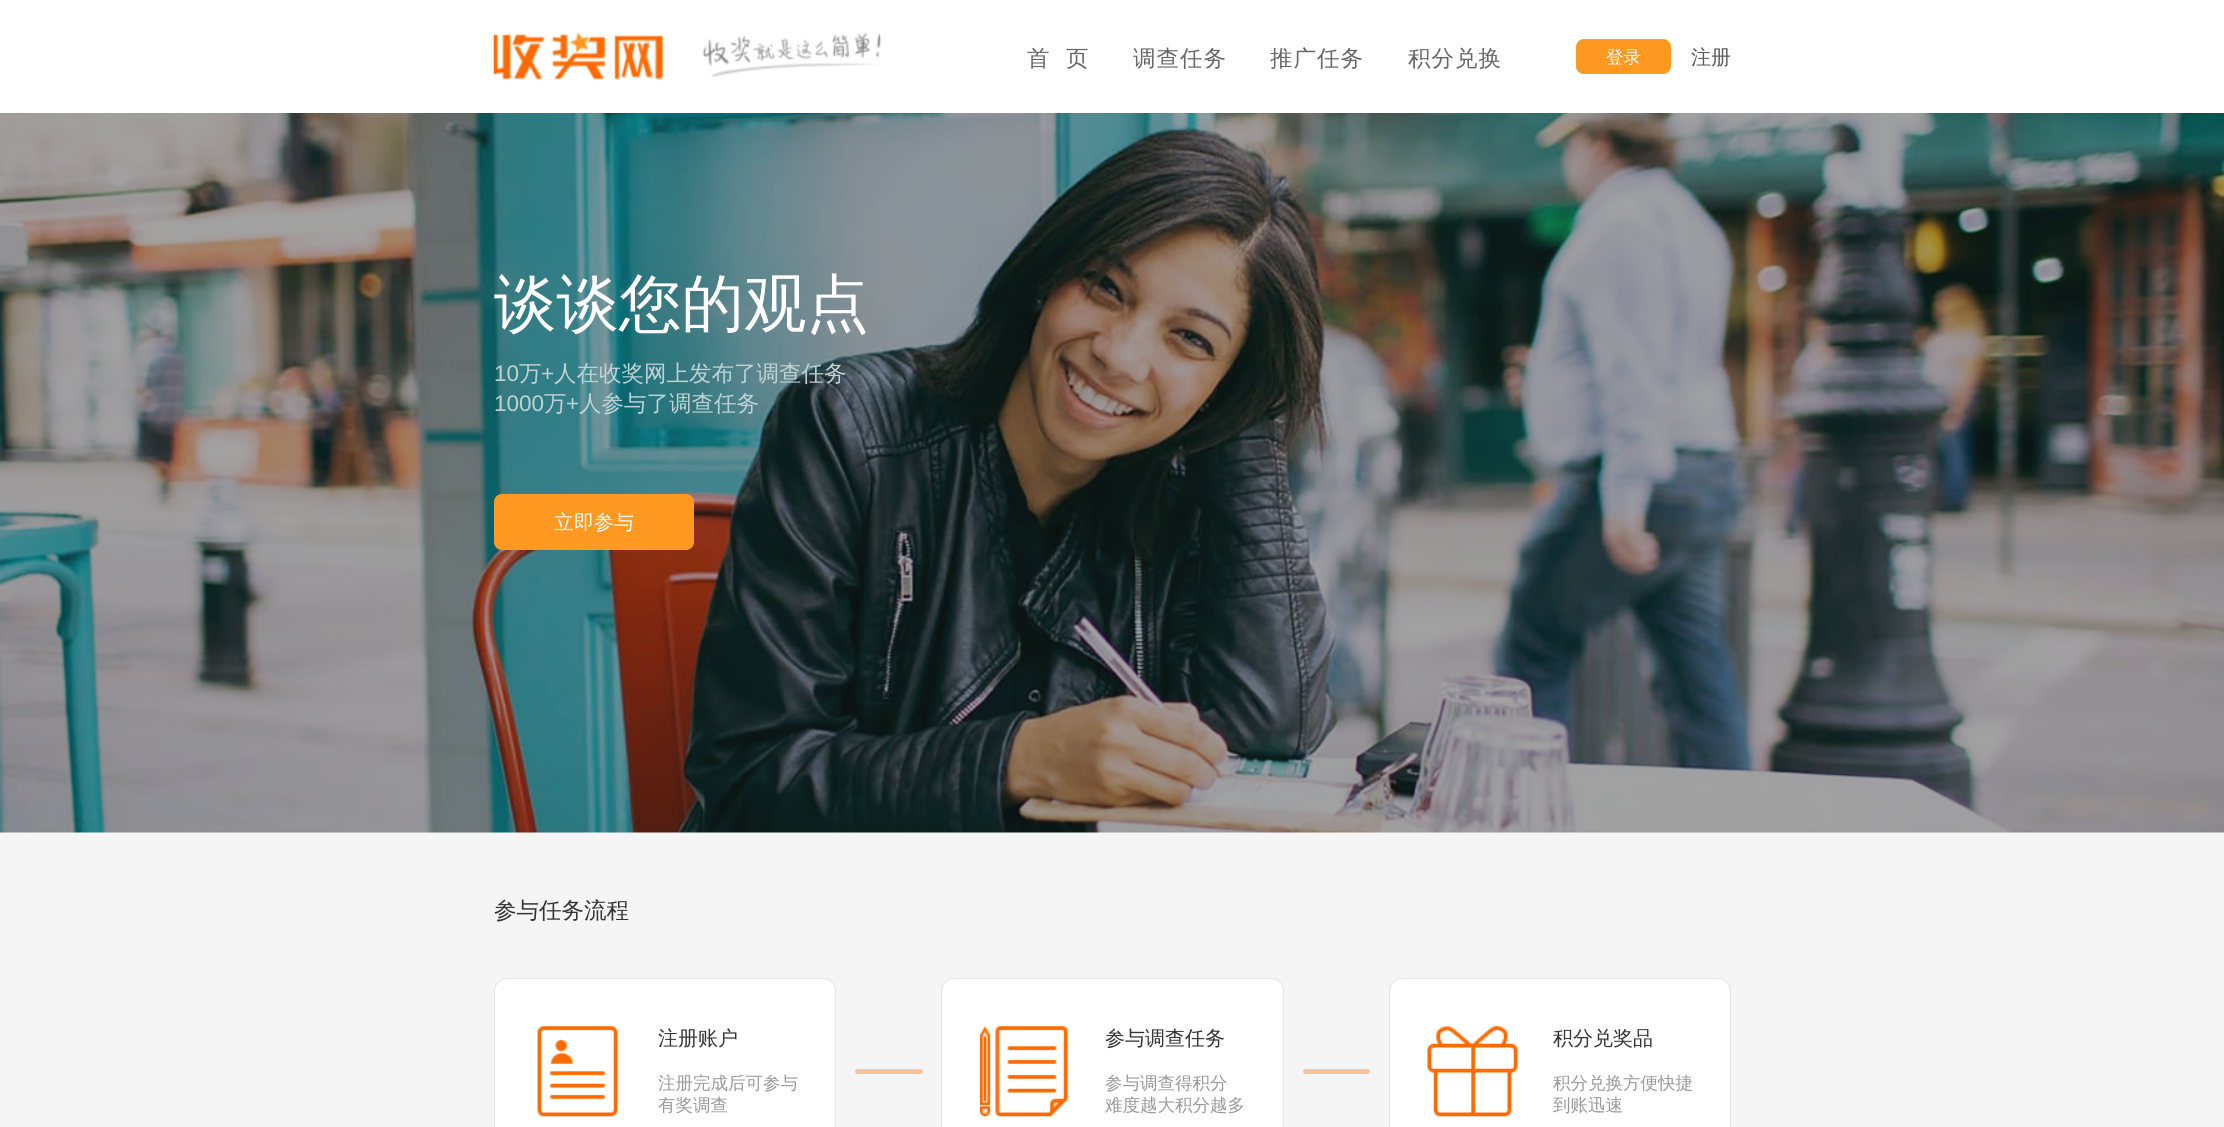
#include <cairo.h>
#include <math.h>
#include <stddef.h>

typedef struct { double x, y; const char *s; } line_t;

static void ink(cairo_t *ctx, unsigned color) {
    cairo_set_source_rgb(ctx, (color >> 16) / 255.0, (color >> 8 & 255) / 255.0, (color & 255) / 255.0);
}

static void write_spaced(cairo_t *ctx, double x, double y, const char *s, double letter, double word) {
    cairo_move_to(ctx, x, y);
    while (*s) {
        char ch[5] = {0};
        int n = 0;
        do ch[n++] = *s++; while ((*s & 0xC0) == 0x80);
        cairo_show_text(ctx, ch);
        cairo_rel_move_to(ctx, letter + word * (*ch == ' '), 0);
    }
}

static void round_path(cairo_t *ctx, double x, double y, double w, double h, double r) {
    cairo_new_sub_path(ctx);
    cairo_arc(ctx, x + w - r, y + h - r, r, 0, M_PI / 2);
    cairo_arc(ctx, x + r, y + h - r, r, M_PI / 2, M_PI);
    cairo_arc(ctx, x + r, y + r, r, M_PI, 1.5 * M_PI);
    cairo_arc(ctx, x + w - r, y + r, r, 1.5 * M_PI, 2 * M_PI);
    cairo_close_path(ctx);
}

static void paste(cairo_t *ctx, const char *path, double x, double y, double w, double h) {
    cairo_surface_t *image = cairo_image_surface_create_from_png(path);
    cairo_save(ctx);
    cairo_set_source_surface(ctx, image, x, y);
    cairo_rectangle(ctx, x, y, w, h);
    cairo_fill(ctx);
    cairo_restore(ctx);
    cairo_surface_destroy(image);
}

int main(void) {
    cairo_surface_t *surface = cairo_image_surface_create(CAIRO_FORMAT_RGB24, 2224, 1127);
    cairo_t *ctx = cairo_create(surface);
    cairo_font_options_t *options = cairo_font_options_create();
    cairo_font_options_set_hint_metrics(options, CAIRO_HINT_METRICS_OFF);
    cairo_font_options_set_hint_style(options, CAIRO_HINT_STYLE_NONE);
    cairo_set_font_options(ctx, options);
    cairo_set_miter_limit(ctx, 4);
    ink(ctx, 0xF5F5F5);
    cairo_paint(ctx);
    ink(ctx, 0xFFFFFF);
    cairo_rectangle(ctx, 0, 0, 2224, 113);
    cairo_fill(ctx);
    paste(ctx, "media/1.png", 493, 32, 170, 48);
    paste(ctx, "media/2.png", 702, 32, 179, 45);
    cairo_select_font_face(ctx, "WenQuanYi Zen Hei Medium", CAIRO_FONT_SLANT_NORMAL, CAIRO_FONT_WEIGHT_NORMAL);
    cairo_set_font_size(ctx, 22.5);
    ink(ctx, 0x666666);
    {
        static const line_t items[] = {
            {1027, 66, "首"},
            {1066, 66, "页"},
            {1133, 66, "调查任务"},
            {1270, 66, "推广任务"},
            {1408, 66, "积分兑换"},
        };
        for (size_t i = 0; i < sizeof items / sizeof *items; i++) {
            write_spaced(ctx, items[i].x, items[i].y, items[i].s, 1, 0);
        }
    }
    ink(ctx, 0xFF9922);
    round_path(ctx, 1576, 39, 95, 35, 8);
    cairo_fill(ctx);
    cairo_set_font_size(ctx, 17.5);
    ink(ctx, 0xFFFFFF);
    cairo_move_to(ctx, 1606, 63);
    cairo_show_text(ctx, "登录");
    cairo_set_font_size(ctx, 20);
    ink(ctx, 0x595959);
    cairo_move_to(ctx, 1691, 64);
    cairo_show_text(ctx, "注册");
    paste(ctx, "media/3.png", 0, 113, 2224, 720);
    cairo_set_font_size(ctx, 62.5);
    ink(ctx, 0xFFFFFF);
    cairo_move_to(ctx, 494, 325);
    cairo_show_text(ctx, "谈谈您的观点");
    cairo_select_font_face(ctx, "Liberation Sans", CAIRO_FONT_SLANT_NORMAL, CAIRO_FONT_WEIGHT_NORMAL);
    cairo_set_font_size(ctx, 22.5);
    ink(ctx, 0xBED3D5);
    cairo_move_to(ctx, 494, 381);
    cairo_show_text(ctx, "10");
    cairo_select_font_face(ctx, "WenQuanYi Zen Hei Medium", CAIRO_FONT_SLANT_NORMAL, CAIRO_FONT_WEIGHT_NORMAL);
    cairo_move_to(ctx, 519, 381);
    cairo_show_text(ctx, "万");
    cairo_select_font_face(ctx, "Liberation Sans", CAIRO_FONT_SLANT_NORMAL, CAIRO_FONT_WEIGHT_NORMAL);
    cairo_move_to(ctx, 541, 381);
    cairo_show_text(ctx, "+");
    cairo_select_font_face(ctx, "WenQuanYi Zen Hei Medium", CAIRO_FONT_SLANT_NORMAL, CAIRO_FONT_WEIGHT_NORMAL);
    cairo_move_to(ctx, 554, 381);
    cairo_show_text(ctx, "人在收奖网上发布了调查任务");
    cairo_select_font_face(ctx, "Liberation Sans", CAIRO_FONT_SLANT_NORMAL, CAIRO_FONT_WEIGHT_NORMAL);
    cairo_move_to(ctx, 494, 411);
    cairo_show_text(ctx, "1000");
    cairo_select_font_face(ctx, "WenQuanYi Zen Hei Medium", CAIRO_FONT_SLANT_NORMAL, CAIRO_FONT_WEIGHT_NORMAL);
    cairo_move_to(ctx, 544, 411);
    cairo_show_text(ctx, "万");
    cairo_select_font_face(ctx, "Liberation Sans", CAIRO_FONT_SLANT_NORMAL, CAIRO_FONT_WEIGHT_NORMAL);
    cairo_move_to(ctx, 566, 411);
    cairo_show_text(ctx, "+");
    cairo_select_font_face(ctx, "WenQuanYi Zen Hei Medium", CAIRO_FONT_SLANT_NORMAL, CAIRO_FONT_WEIGHT_NORMAL);
    cairo_move_to(ctx, 579, 411);
    cairo_show_text(ctx, "人参与了调查任务");
    ink(ctx, 0xFF9922);
    round_path(ctx, 494, 494, 200, 56, 8);
    cairo_fill(ctx);
    cairo_set_font_size(ctx, 20);
    ink(ctx, 0xFFFFFF);
    cairo_move_to(ctx, 554, 529);
    cairo_show_text(ctx, "立即参与");
    cairo_set_font_size(ctx, 22.5);
    ink(ctx, 0x333333);
    cairo_move_to(ctx, 494, 918);
    cairo_show_text(ctx, "参与任务流程");
    ink(ctx, 0xFFFFFF);
    round_path(ctx, 494.5, 978.5, 341, 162, 12.5);
    cairo_fill_preserve(ctx);
    ink(ctx, 0xE5E5E5);
    cairo_set_line_width(ctx, 1);
    cairo_stroke(ctx);
    paste(ctx, "media/4.png", 537, 1026, 81, 91);
    cairo_set_font_size(ctx, 20);
    ink(ctx, 0x333333);
    cairo_move_to(ctx, 658, 1045);
    cairo_show_text(ctx, "注册账户");
    cairo_set_font_size(ctx, 17.5);
    ink(ctx, 0x999999);
    cairo_move_to(ctx, 658, 1089);
    cairo_show_text(ctx, "注册完成后可参与");
    cairo_move_to(ctx, 658, 1111);
    cairo_show_text(ctx, "有奖调查");
    ink(ctx, 0xFFC296);
    round_path(ctx, 855, 1069, 68, 5, 2.5);
    cairo_fill(ctx);
    ink(ctx, 0xFFFFFF);
    round_path(ctx, 941.5, 978.5, 342, 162, 12.5);
    cairo_fill_preserve(ctx);
    ink(ctx, 0xE5E5E5);
    cairo_stroke(ctx);
    paste(ctx, "media/5.png", 980, 1026, 89, 91);
    cairo_set_font_size(ctx, 20);
    ink(ctx, 0x333333);
    cairo_move_to(ctx, 1105, 1045);
    cairo_show_text(ctx, "参与调查任务");
    cairo_set_font_size(ctx, 17.5);
    ink(ctx, 0x999999);
    cairo_move_to(ctx, 1105, 1089);
    cairo_show_text(ctx, "参与调查得积分");
    cairo_move_to(ctx, 1105, 1111);
    cairo_show_text(ctx, "难度越大积分越多");
    ink(ctx, 0xFFC296);
    round_path(ctx, 1303, 1069, 67, 5, 2.5);
    cairo_fill(ctx);
    ink(ctx, 0xFFFFFF);
    round_path(ctx, 1389.5, 978.5, 341, 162, 12.5);
    cairo_fill_preserve(ctx);
    ink(ctx, 0xE5E5E5);
    cairo_stroke(ctx);
    paste(ctx, "media/6.png", 1427, 1026, 91, 91);
    cairo_set_font_size(ctx, 20);
    ink(ctx, 0x333333);
    cairo_move_to(ctx, 1553, 1045);
    cairo_show_text(ctx, "积分兑奖品");
    cairo_set_font_size(ctx, 17.5);
    ink(ctx, 0x999999);
    cairo_move_to(ctx, 1553, 1089);
    cairo_show_text(ctx, "积分兑换方便快捷");
    cairo_move_to(ctx, 1553, 1111);
    cairo_show_text(ctx, "到账迅速");
    cairo_surface_write_to_png(surface, "image.png");
    cairo_font_options_destroy(options);
    cairo_destroy(ctx);
    cairo_surface_destroy(surface);
    return 0;
}
